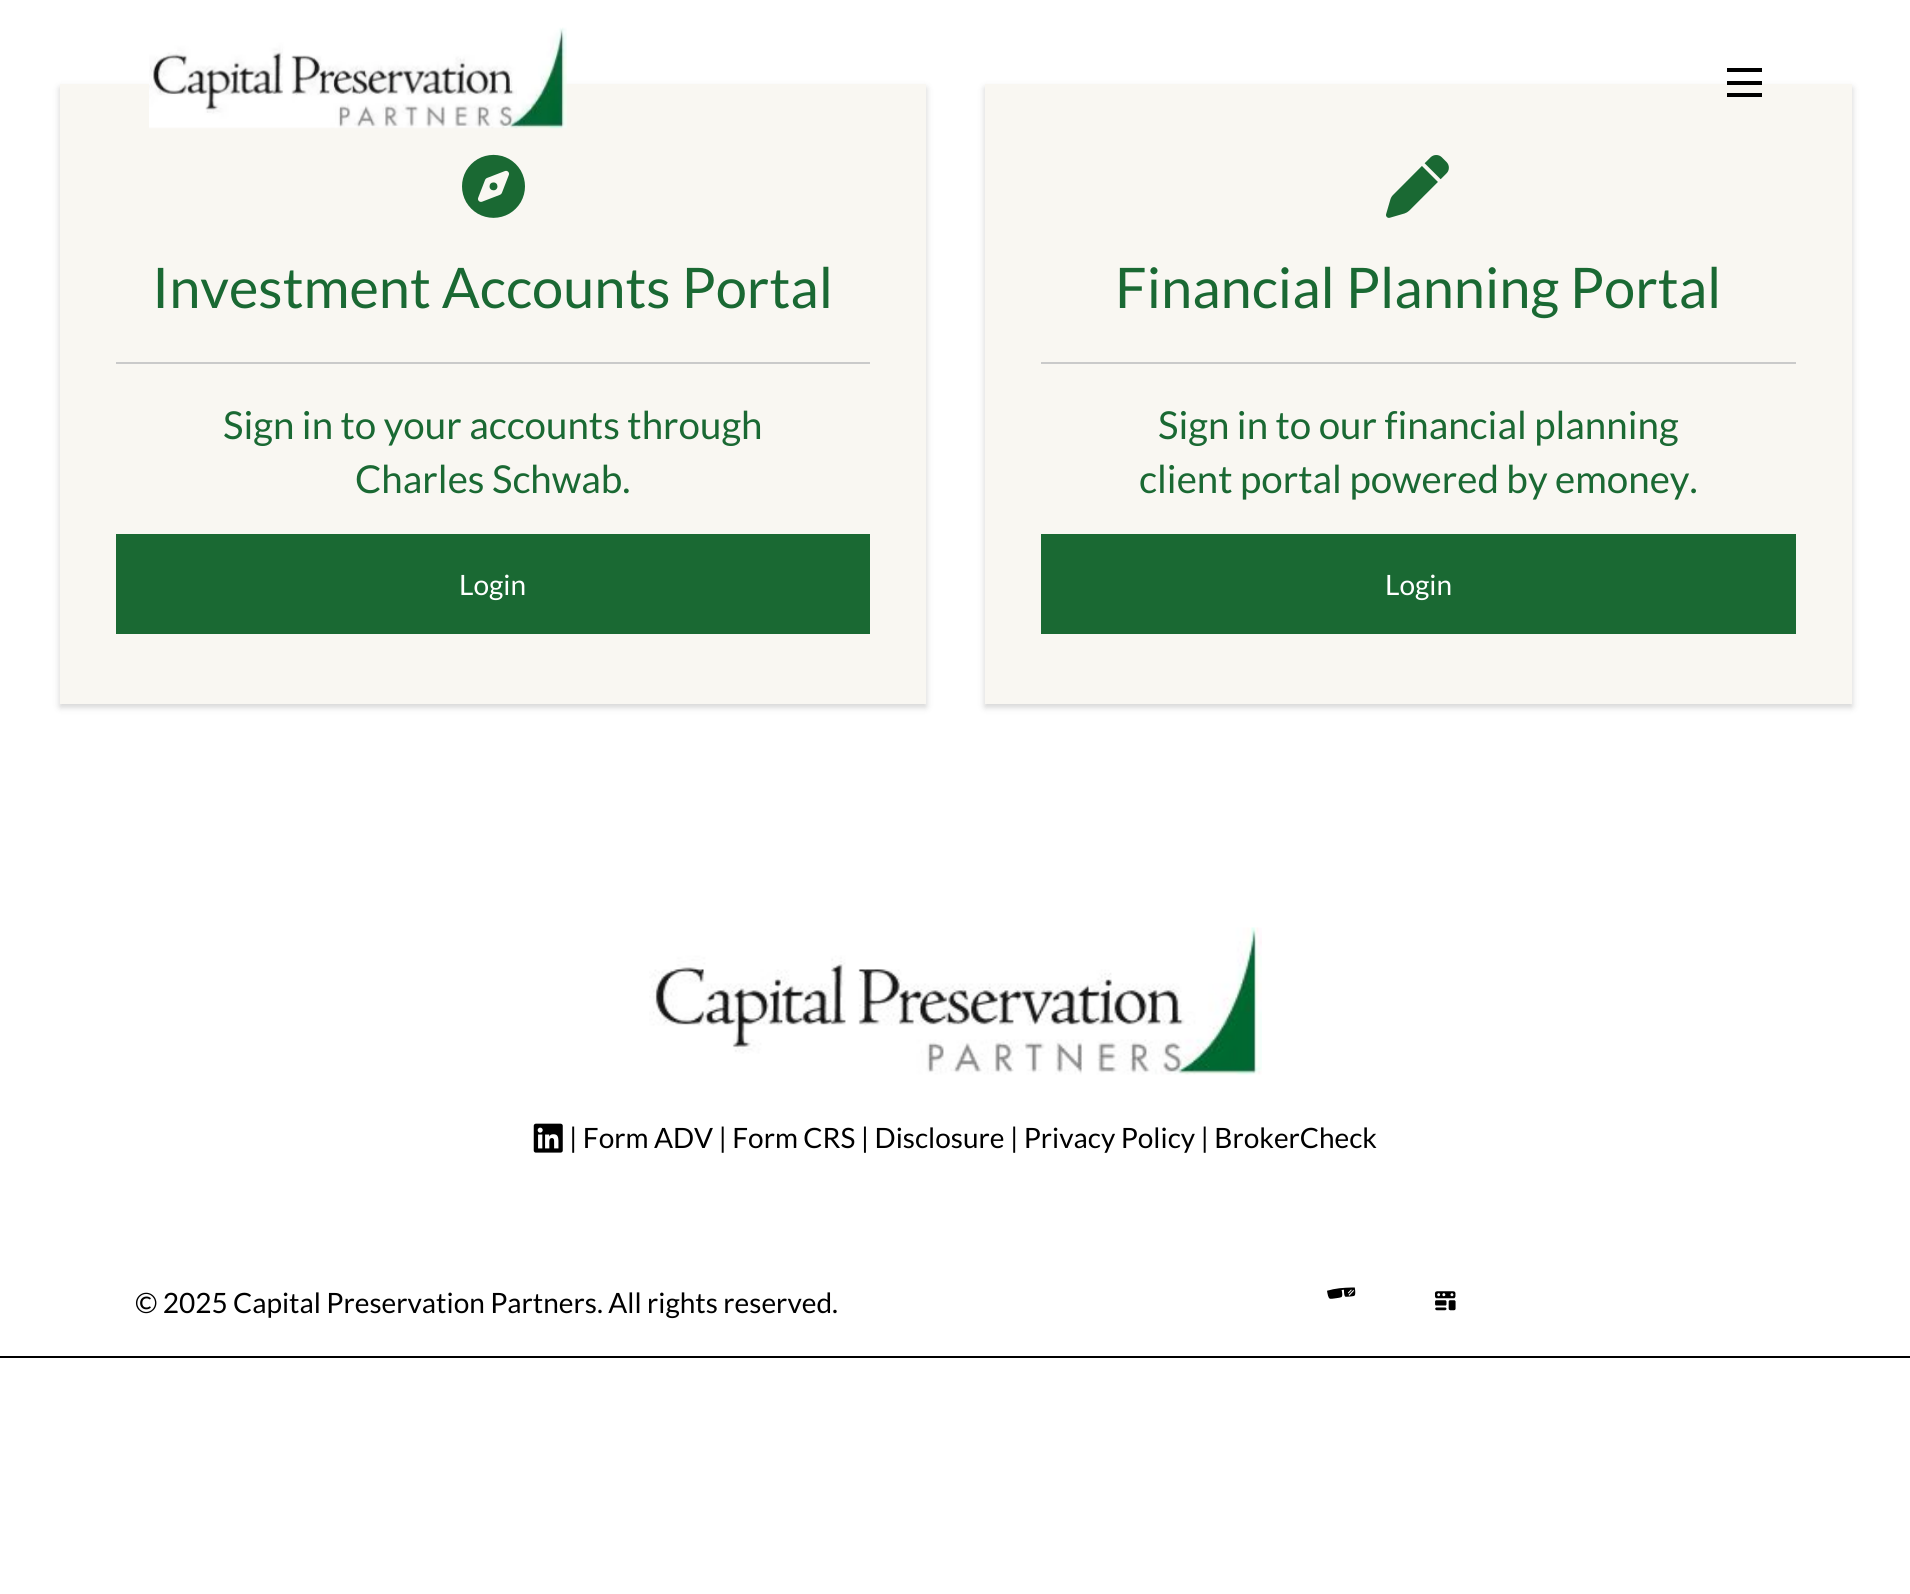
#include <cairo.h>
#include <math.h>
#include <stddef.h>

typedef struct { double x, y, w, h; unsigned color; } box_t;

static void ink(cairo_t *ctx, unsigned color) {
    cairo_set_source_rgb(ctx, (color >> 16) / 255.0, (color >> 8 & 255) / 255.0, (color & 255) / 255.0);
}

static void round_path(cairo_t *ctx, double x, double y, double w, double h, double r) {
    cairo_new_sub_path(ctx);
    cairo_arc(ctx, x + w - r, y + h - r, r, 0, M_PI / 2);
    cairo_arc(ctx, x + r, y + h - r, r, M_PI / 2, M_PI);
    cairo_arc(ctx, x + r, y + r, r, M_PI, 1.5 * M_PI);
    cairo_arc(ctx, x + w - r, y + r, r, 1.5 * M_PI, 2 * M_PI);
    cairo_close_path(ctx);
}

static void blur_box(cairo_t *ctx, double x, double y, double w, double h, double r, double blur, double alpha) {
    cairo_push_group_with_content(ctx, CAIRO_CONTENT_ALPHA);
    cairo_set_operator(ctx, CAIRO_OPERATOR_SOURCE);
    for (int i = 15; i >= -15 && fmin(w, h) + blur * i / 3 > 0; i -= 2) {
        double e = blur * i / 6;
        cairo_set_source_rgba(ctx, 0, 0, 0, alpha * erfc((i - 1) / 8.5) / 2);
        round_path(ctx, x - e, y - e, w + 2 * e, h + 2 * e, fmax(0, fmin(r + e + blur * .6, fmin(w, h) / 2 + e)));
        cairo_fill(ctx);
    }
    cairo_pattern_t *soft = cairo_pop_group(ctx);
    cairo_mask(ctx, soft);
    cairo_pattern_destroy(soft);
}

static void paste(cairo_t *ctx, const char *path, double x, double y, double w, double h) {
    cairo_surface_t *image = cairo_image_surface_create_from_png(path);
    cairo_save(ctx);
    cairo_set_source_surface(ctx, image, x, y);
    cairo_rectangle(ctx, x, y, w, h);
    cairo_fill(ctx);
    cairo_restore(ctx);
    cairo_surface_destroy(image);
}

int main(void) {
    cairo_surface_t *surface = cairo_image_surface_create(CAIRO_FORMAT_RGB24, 1910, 1594);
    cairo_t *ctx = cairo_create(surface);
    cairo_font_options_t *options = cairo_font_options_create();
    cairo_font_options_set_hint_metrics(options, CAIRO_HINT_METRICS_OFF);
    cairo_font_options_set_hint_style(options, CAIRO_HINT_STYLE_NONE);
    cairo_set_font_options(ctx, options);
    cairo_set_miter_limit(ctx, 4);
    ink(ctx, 0xFFFFFF);
    cairo_paint(ctx);
    ink(ctx, 0x000000);
    cairo_rectangle(ctx, 0, 1356, 1910, 2);
    cairo_fill(ctx);
    ink(ctx, 0x000000);
    blur_box(ctx, 60, 88, 866, 619, 0, 3.5, 0.18);
    ink(ctx, 0xF9F7F2);
    cairo_rectangle(ctx, 60, 84, 866, 620);
    cairo_fill(ctx);
    paste(ctx, "media/1.png", 149, 27, 418, 102);
    ink(ctx, 0x000000);
    blur_box(ctx, 985, 88, 867, 619, 0, 3.5, 0.18);
    {
        static const box_t items[] = {
            {985, 84, 867, 620, 0xF9F7F2},
            {1727, 93, 35, 4, 0x000000},
            {1727, 81, 35, 4, 0x000000},
            {1727, 68, 35, 4, 0x000000},
        };
        for (size_t i = 0; i < sizeof items / sizeof *items; i++) {
            ink(ctx, items[i].color);
            cairo_rectangle(ctx, items[i].x, items[i].y, items[i].w, items[i].h);
            cairo_fill(ctx);
        }
    }
    paste(ctx, "media/2.png", 462, 154, 63, 64);
    cairo_select_font_face(ctx, "Lato", CAIRO_FONT_SLANT_NORMAL, CAIRO_FONT_WEIGHT_NORMAL);
    cairo_set_font_size(ctx, 56);
    ink(ctx, 0x1A6933);
    cairo_move_to(ctx, 152, 308);
    cairo_show_text(ctx, "Investment Accounts Portal");
    ink(ctx, 0xCACACA);
    cairo_rectangle(ctx, 116, 362, 754, 2);
    cairo_fill(ctx);
    cairo_set_font_size(ctx, 38.5);
    ink(ctx, 0x1A6933);
    cairo_move_to(ctx, 223, 439);
    cairo_show_text(ctx, "Sign in to your accounts through");
    cairo_move_to(ctx, 355, 493);
    cairo_show_text(ctx, "Charles Schwab.");
    cairo_rectangle(ctx, 116, 534, 754, 100);
    cairo_fill(ctx);
    cairo_set_font_size(ctx, 28);
    ink(ctx, 0xFFFFFF);
    cairo_move_to(ctx, 459, 595);
    cairo_show_text(ctx, "Login");
    paste(ctx, "media/3.png", 1386, 155, 63, 63);
    cairo_set_font_size(ctx, 56);
    ink(ctx, 0x1A6933);
    cairo_move_to(ctx, 1115, 308);
    cairo_show_text(ctx, "Financial Planning Portal");
    ink(ctx, 0xCACACA);
    cairo_rectangle(ctx, 1041, 362, 755, 2);
    cairo_fill(ctx);
    cairo_set_font_size(ctx, 38.5);
    ink(ctx, 0x1A6933);
    cairo_move_to(ctx, 1158, 439);
    cairo_show_text(ctx, "Sign in to our financial planning");
    cairo_move_to(ctx, 1139, 493);
    cairo_show_text(ctx, "client portal powered by emoney.");
    cairo_rectangle(ctx, 1041, 534, 755, 100);
    cairo_fill(ctx);
    cairo_set_font_size(ctx, 28);
    ink(ctx, 0xFFFFFF);
    cairo_move_to(ctx, 1385, 595);
    cairo_show_text(ctx, "Login");
    paste(ctx, "media/4.png", 649, 927, 613, 148);
    paste(ctx, "media/5.png", 533, 1123, 30, 30);
    ink(ctx, 0x000000);
    cairo_move_to(ctx, 569, 1148);
    cairo_show_text(ctx, "| Form ADV | Form CRS | Disclosure | Privacy Policy | BrokerCheck");
    cairo_move_to(ctx, 135, 1313);
    cairo_show_text(ctx, "© 2025 Capital Preservation Partners. All rights reserved.");
    paste(ctx, "media/6.png", 1327, 1287, 129, 24);
    cairo_surface_write_to_png(surface, "image.png");
    cairo_font_options_destroy(options);
    cairo_destroy(ctx);
    cairo_surface_destroy(surface);
    return 0;
}
